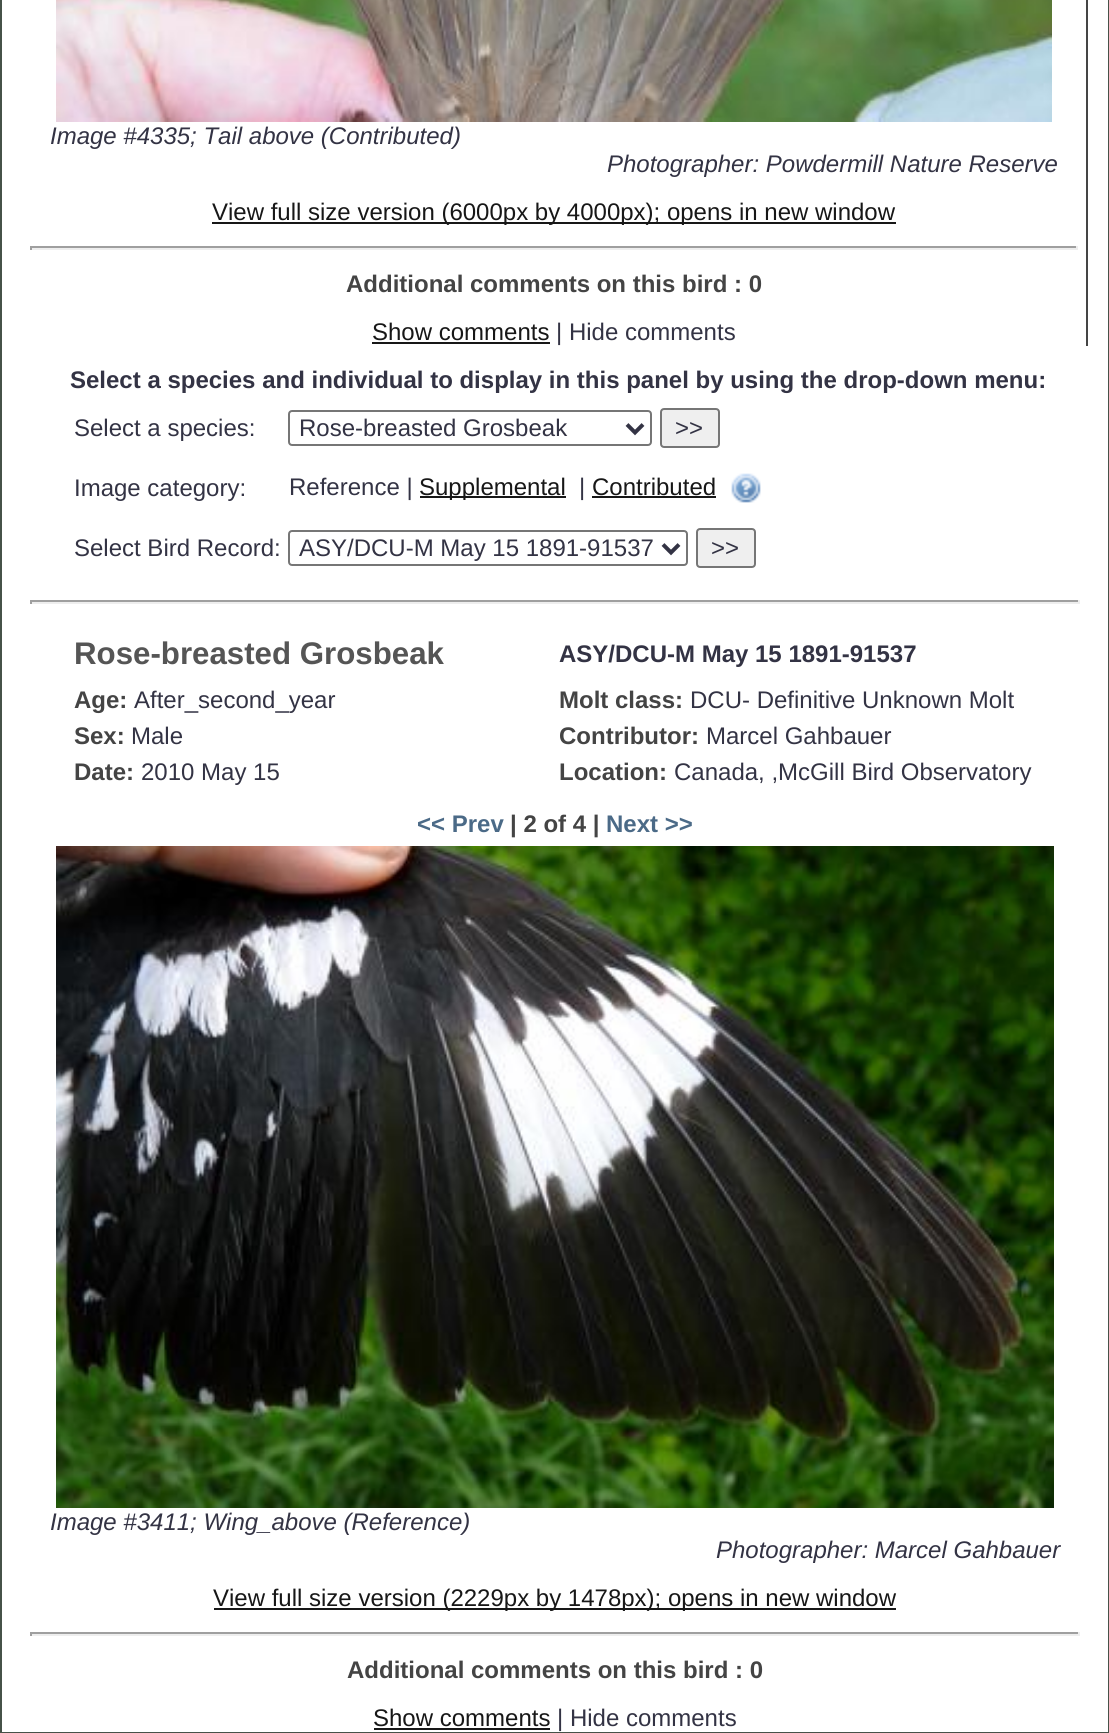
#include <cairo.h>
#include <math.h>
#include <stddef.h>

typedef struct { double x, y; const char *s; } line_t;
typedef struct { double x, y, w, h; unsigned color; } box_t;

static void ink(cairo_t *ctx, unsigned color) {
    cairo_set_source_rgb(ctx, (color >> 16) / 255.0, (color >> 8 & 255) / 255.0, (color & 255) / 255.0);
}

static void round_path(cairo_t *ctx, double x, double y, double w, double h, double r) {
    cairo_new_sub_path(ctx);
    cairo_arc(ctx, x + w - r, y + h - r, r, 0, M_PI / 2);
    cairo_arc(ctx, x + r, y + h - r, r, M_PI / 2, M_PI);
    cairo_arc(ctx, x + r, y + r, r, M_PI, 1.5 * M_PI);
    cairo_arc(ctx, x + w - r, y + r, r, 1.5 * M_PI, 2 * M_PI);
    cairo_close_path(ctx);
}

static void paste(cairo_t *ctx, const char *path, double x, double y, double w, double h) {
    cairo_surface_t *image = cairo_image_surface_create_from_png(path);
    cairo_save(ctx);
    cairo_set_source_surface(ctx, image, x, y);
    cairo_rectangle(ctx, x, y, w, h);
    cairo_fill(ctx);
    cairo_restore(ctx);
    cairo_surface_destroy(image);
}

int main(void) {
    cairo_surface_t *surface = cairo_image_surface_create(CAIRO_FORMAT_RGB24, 1109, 1733);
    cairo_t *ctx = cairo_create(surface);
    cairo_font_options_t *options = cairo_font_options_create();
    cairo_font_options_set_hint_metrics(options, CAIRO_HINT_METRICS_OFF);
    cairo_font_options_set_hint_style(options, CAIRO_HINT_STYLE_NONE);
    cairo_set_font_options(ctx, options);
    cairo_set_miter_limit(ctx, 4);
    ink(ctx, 0xFFFFFF);
    cairo_paint(ctx);
    cairo_rectangle(ctx, 1, -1, 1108, 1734);
    ink(ctx, 0x465248);
    cairo_stroke(ctx);
    ink(ctx, 0x454545);
    cairo_rectangle(ctx, 1086, 0, 2, 346);
    cairo_fill(ctx);
    paste(ctx, "media/1.png", 56, 0, 996, 122);
    cairo_select_font_face(ctx, "Liberation Sans", CAIRO_FONT_SLANT_ITALIC, CAIRO_FONT_WEIGHT_NORMAL);
    cairo_set_font_size(ctx, 24);
    ink(ctx, 0x333344);
    cairo_move_to(ctx, 50, 144);
    cairo_show_text(ctx, "Image #4335; Tail above (Contributed)");
    cairo_move_to(ctx, 607, 172);
    cairo_show_text(ctx, "Photographer: Powdermill Nature Reserve");
    ink(ctx, 0x171717);
    cairo_rectangle(ctx, 212, 222, 684, 2);
    cairo_fill(ctx);
    cairo_select_font_face(ctx, "Liberation Sans", CAIRO_FONT_SLANT_NORMAL, CAIRO_FONT_WEIGHT_NORMAL);
    cairo_move_to(ctx, 212, 220);
    cairo_show_text(ctx, "View full size version (6000px by 4000px); opens in new window");
    {
        static const box_t items[] = {
            {30, 246, 1048, 2, 0x9F9F9F},
            {1076, 246, 2, 4, 0xEEEEEE},
            {30, 248, 1048, 2, 0xEEEEEE},
            {30, 246, 2, 4, 0x9F9F9F},
        };
        for (size_t i = 0; i < sizeof items / sizeof *items; i++) {
            ink(ctx, items[i].color);
            cairo_rectangle(ctx, items[i].x, items[i].y, items[i].w, items[i].h);
            cairo_fill(ctx);
        }
    }
    cairo_select_font_face(ctx, "Liberation Sans", CAIRO_FONT_SLANT_NORMAL, CAIRO_FONT_WEIGHT_BOLD);
    ink(ctx, 0x444444);
    cairo_move_to(ctx, 346, 292);
    cairo_show_text(ctx, "Additional comments on this bird : 0");
    cairo_select_font_face(ctx, "Liberation Sans", CAIRO_FONT_SLANT_NORMAL, CAIRO_FONT_WEIGHT_NORMAL);
    ink(ctx, 0x171717);
    cairo_move_to(ctx, 372, 340);
    cairo_show_text(ctx, "Show comments");
    cairo_rectangle(ctx, 372, 342, 178, 2);
    cairo_fill(ctx);
    ink(ctx, 0x333344);
    cairo_move_to(ctx, 556, 340);
    cairo_show_text(ctx, "| Hide comments");
    cairo_select_font_face(ctx, "Liberation Sans", CAIRO_FONT_SLANT_NORMAL, CAIRO_FONT_WEIGHT_BOLD);
    cairo_move_to(ctx, 70, 388);
    cairo_show_text(ctx, "Select a species and individual to display in this panel by using the drop-down menu:");
    cairo_select_font_face(ctx, "Liberation Sans", CAIRO_FONT_SLANT_NORMAL, CAIRO_FONT_WEIGHT_NORMAL);
    cairo_move_to(ctx, 74, 436);
    cairo_show_text(ctx, "Select a species:");
    round_path(ctx, 289, 411, 362, 34, 3);
    ink(ctx, 0x767676);
    cairo_stroke(ctx);
    cairo_new_path(ctx);
    cairo_move_to(ctx, 627, 424.5);
    cairo_line_to(ctx, 635, 432.5);
    cairo_line_to(ctx, 643, 424.5);
    ink(ctx, 0x333344);
    cairo_set_line_width(ctx, 4);
    cairo_stroke(ctx);
    cairo_move_to(ctx, 299, 436);
    cairo_show_text(ctx, "Rose-breasted Grosbeak");
    ink(ctx, 0xEFEFEF);
    round_path(ctx, 661, 409, 58, 38, 3);
    cairo_fill_preserve(ctx);
    ink(ctx, 0x767676);
    cairo_set_line_width(ctx, 2);
    cairo_stroke(ctx);
    ink(ctx, 0x333344);
    {
        static const line_t items[] = {
            {675, 436, ">>"},
            {74, 496, "Image category:"},
            {289, 495, "Reference |"},
        };
        for (size_t i = 0; i < sizeof items / sizeof *items; i++) {
            cairo_move_to(ctx, items[i].x, items[i].y);
            cairo_show_text(ctx, items[i].s);
        }
    }
    ink(ctx, 0x171717);
    cairo_rectangle(ctx, 420, 496, 146, 2);
    cairo_fill(ctx);
    cairo_move_to(ctx, 419, 495);
    cairo_show_text(ctx, "Supplemental");
    ink(ctx, 0x333344);
    cairo_move_to(ctx, 579, 495);
    cairo_show_text(ctx, "|");
    ink(ctx, 0x171717);
    cairo_move_to(ctx, 592, 495);
    cairo_show_text(ctx, "Contributed");
    cairo_rectangle(ctx, 592, 496, 124, 2);
    cairo_fill(ctx);
    paste(ctx, "media/2.png", 731, 473, 30, 30);
    ink(ctx, 0x333344);
    cairo_move_to(ctx, 74, 556);
    cairo_show_text(ctx, "Select Bird Record:");
    round_path(ctx, 289, 531, 398, 34, 3);
    ink(ctx, 0x767676);
    cairo_stroke(ctx);
    cairo_new_path(ctx);
    cairo_move_to(ctx, 663, 544.5);
    cairo_line_to(ctx, 671, 552.5);
    cairo_line_to(ctx, 679, 544.5);
    ink(ctx, 0x333344);
    cairo_set_line_width(ctx, 4);
    cairo_stroke(ctx);
    cairo_move_to(ctx, 299, 556);
    cairo_show_text(ctx, "ASY/DCU-M May 15 1891-91537");
    ink(ctx, 0xEFEFEF);
    round_path(ctx, 697, 529, 58, 38, 3);
    cairo_fill_preserve(ctx);
    ink(ctx, 0x767676);
    cairo_set_line_width(ctx, 2);
    cairo_stroke(ctx);
    ink(ctx, 0x333344);
    cairo_move_to(ctx, 711, 556);
    cairo_show_text(ctx, ">>");
    {
        static const box_t items[] = {
            {30, 600, 1050, 2, 0x9F9F9F},
            {1078, 600, 2, 4, 0xEEEEEE},
            {30, 602, 1050, 2, 0xEEEEEE},
            {30, 600, 2, 4, 0x9F9F9F},
        };
        for (size_t i = 0; i < sizeof items / sizeof *items; i++) {
            ink(ctx, items[i].color);
            cairo_rectangle(ctx, items[i].x, items[i].y, items[i].w, items[i].h);
            cairo_fill(ctx);
        }
    }
    cairo_select_font_face(ctx, "Liberation Sans", CAIRO_FONT_SLANT_NORMAL, CAIRO_FONT_WEIGHT_BOLD);
    cairo_set_font_size(ctx, 31.25);
    ink(ctx, 0x555555);
    cairo_move_to(ctx, 74, 664);
    cairo_show_text(ctx, "Rose-breasted Grosbeak");
    cairo_set_font_size(ctx, 24);
    ink(ctx, 0x333344);
    cairo_move_to(ctx, 559, 662);
    cairo_show_text(ctx, "ASY/DCU-M May 15 1891-91537");
    ink(ctx, 0x444444);
    cairo_move_to(ctx, 74, 708);
    cairo_show_text(ctx, "Age:");
    cairo_select_font_face(ctx, "Liberation Sans", CAIRO_FONT_SLANT_NORMAL, CAIRO_FONT_WEIGHT_NORMAL);
    ink(ctx, 0x333344);
    cairo_move_to(ctx, 134, 708);
    cairo_show_text(ctx, "After_second_year");
    cairo_select_font_face(ctx, "Liberation Sans", CAIRO_FONT_SLANT_NORMAL, CAIRO_FONT_WEIGHT_BOLD);
    ink(ctx, 0x444444);
    cairo_move_to(ctx, 559, 708);
    cairo_show_text(ctx, "Molt class:");
    cairo_select_font_face(ctx, "Liberation Sans", CAIRO_FONT_SLANT_NORMAL, CAIRO_FONT_WEIGHT_NORMAL);
    ink(ctx, 0x333344);
    cairo_move_to(ctx, 690, 708);
    cairo_show_text(ctx, "DCU- Definitive Unknown Molt");
    cairo_select_font_face(ctx, "Liberation Sans", CAIRO_FONT_SLANT_NORMAL, CAIRO_FONT_WEIGHT_BOLD);
    ink(ctx, 0x444444);
    cairo_move_to(ctx, 74, 744);
    cairo_show_text(ctx, "Sex:");
    cairo_select_font_face(ctx, "Liberation Sans", CAIRO_FONT_SLANT_NORMAL, CAIRO_FONT_WEIGHT_NORMAL);
    ink(ctx, 0x333344);
    cairo_move_to(ctx, 131, 744);
    cairo_show_text(ctx, "Male");
    cairo_select_font_face(ctx, "Liberation Sans", CAIRO_FONT_SLANT_NORMAL, CAIRO_FONT_WEIGHT_BOLD);
    ink(ctx, 0x444444);
    cairo_move_to(ctx, 559, 744);
    cairo_show_text(ctx, "Contributor:");
    cairo_select_font_face(ctx, "Liberation Sans", CAIRO_FONT_SLANT_NORMAL, CAIRO_FONT_WEIGHT_NORMAL);
    ink(ctx, 0x333344);
    cairo_move_to(ctx, 706, 744);
    cairo_show_text(ctx, "Marcel Gahbauer");
    cairo_select_font_face(ctx, "Liberation Sans", CAIRO_FONT_SLANT_NORMAL, CAIRO_FONT_WEIGHT_BOLD);
    ink(ctx, 0x444444);
    cairo_move_to(ctx, 74, 780);
    cairo_show_text(ctx, "Date:");
    cairo_select_font_face(ctx, "Liberation Sans", CAIRO_FONT_SLANT_NORMAL, CAIRO_FONT_WEIGHT_NORMAL);
    ink(ctx, 0x333344);
    cairo_move_to(ctx, 141, 780);
    cairo_show_text(ctx, "2010 May 15");
    cairo_select_font_face(ctx, "Liberation Sans", CAIRO_FONT_SLANT_NORMAL, CAIRO_FONT_WEIGHT_BOLD);
    ink(ctx, 0x444444);
    cairo_move_to(ctx, 559, 780);
    cairo_show_text(ctx, "Location:");
    cairo_select_font_face(ctx, "Liberation Sans", CAIRO_FONT_SLANT_NORMAL, CAIRO_FONT_WEIGHT_NORMAL);
    ink(ctx, 0x333344);
    cairo_move_to(ctx, 674, 780);
    cairo_show_text(ctx, "Canada, ,McGill Bird Observatory");
    cairo_select_font_face(ctx, "Liberation Sans", CAIRO_FONT_SLANT_NORMAL, CAIRO_FONT_WEIGHT_BOLD);
    ink(ctx, 0x4B6A87);
    cairo_move_to(ctx, 417, 832);
    cairo_show_text(ctx, "<< Prev");
    ink(ctx, 0x444444);
    cairo_move_to(ctx, 510, 832);
    cairo_show_text(ctx, "| 2 of 4 |");
    ink(ctx, 0x4B6A87);
    cairo_move_to(ctx, 606, 832);
    cairo_show_text(ctx, "Next >>");
    paste(ctx, "media/3.png", 56, 846, 998, 662);
    cairo_select_font_face(ctx, "Liberation Sans", CAIRO_FONT_SLANT_ITALIC, CAIRO_FONT_WEIGHT_NORMAL);
    ink(ctx, 0x333344);
    cairo_move_to(ctx, 50, 1530);
    cairo_show_text(ctx, "Image #3411; Wing_above (Reference)");
    cairo_move_to(ctx, 716, 1558);
    cairo_show_text(ctx, "Photographer: Marcel Gahbauer");
    ink(ctx, 0x171717);
    cairo_rectangle(ctx, 214, 1608, 682, 2);
    cairo_fill(ctx);
    cairo_select_font_face(ctx, "Liberation Sans", CAIRO_FONT_SLANT_NORMAL, CAIRO_FONT_WEIGHT_NORMAL);
    cairo_move_to(ctx, 213, 1606);
    cairo_show_text(ctx, "View full size version (2229px by 1478px); opens in new window");
    {
        static const box_t items[] = {
            {30, 1632, 1050, 2, 0x9F9F9F},
            {1078, 1632, 2, 4, 0xEEEEEE},
            {30, 1634, 1050, 2, 0xEEEEEE},
            {30, 1632, 2, 4, 0x9F9F9F},
        };
        for (size_t i = 0; i < sizeof items / sizeof *items; i++) {
            ink(ctx, items[i].color);
            cairo_rectangle(ctx, items[i].x, items[i].y, items[i].w, items[i].h);
            cairo_fill(ctx);
        }
    }
    cairo_select_font_face(ctx, "Liberation Sans", CAIRO_FONT_SLANT_NORMAL, CAIRO_FONT_WEIGHT_BOLD);
    ink(ctx, 0x444444);
    cairo_move_to(ctx, 347, 1678);
    cairo_show_text(ctx, "Additional comments on this bird : 0");
    cairo_select_font_face(ctx, "Liberation Sans", CAIRO_FONT_SLANT_NORMAL, CAIRO_FONT_WEIGHT_NORMAL);
    ink(ctx, 0x171717);
    cairo_move_to(ctx, 373, 1726);
    cairo_show_text(ctx, "Show comments");
    cairo_rectangle(ctx, 374, 1728, 176, 2);
    cairo_fill(ctx);
    ink(ctx, 0x333344);
    cairo_move_to(ctx, 557, 1726);
    cairo_show_text(ctx, "| Hide comments");
    cairo_surface_write_to_png(surface, "image.png");
    cairo_font_options_destroy(options);
    cairo_destroy(ctx);
    cairo_surface_destroy(surface);
    return 0;
}
